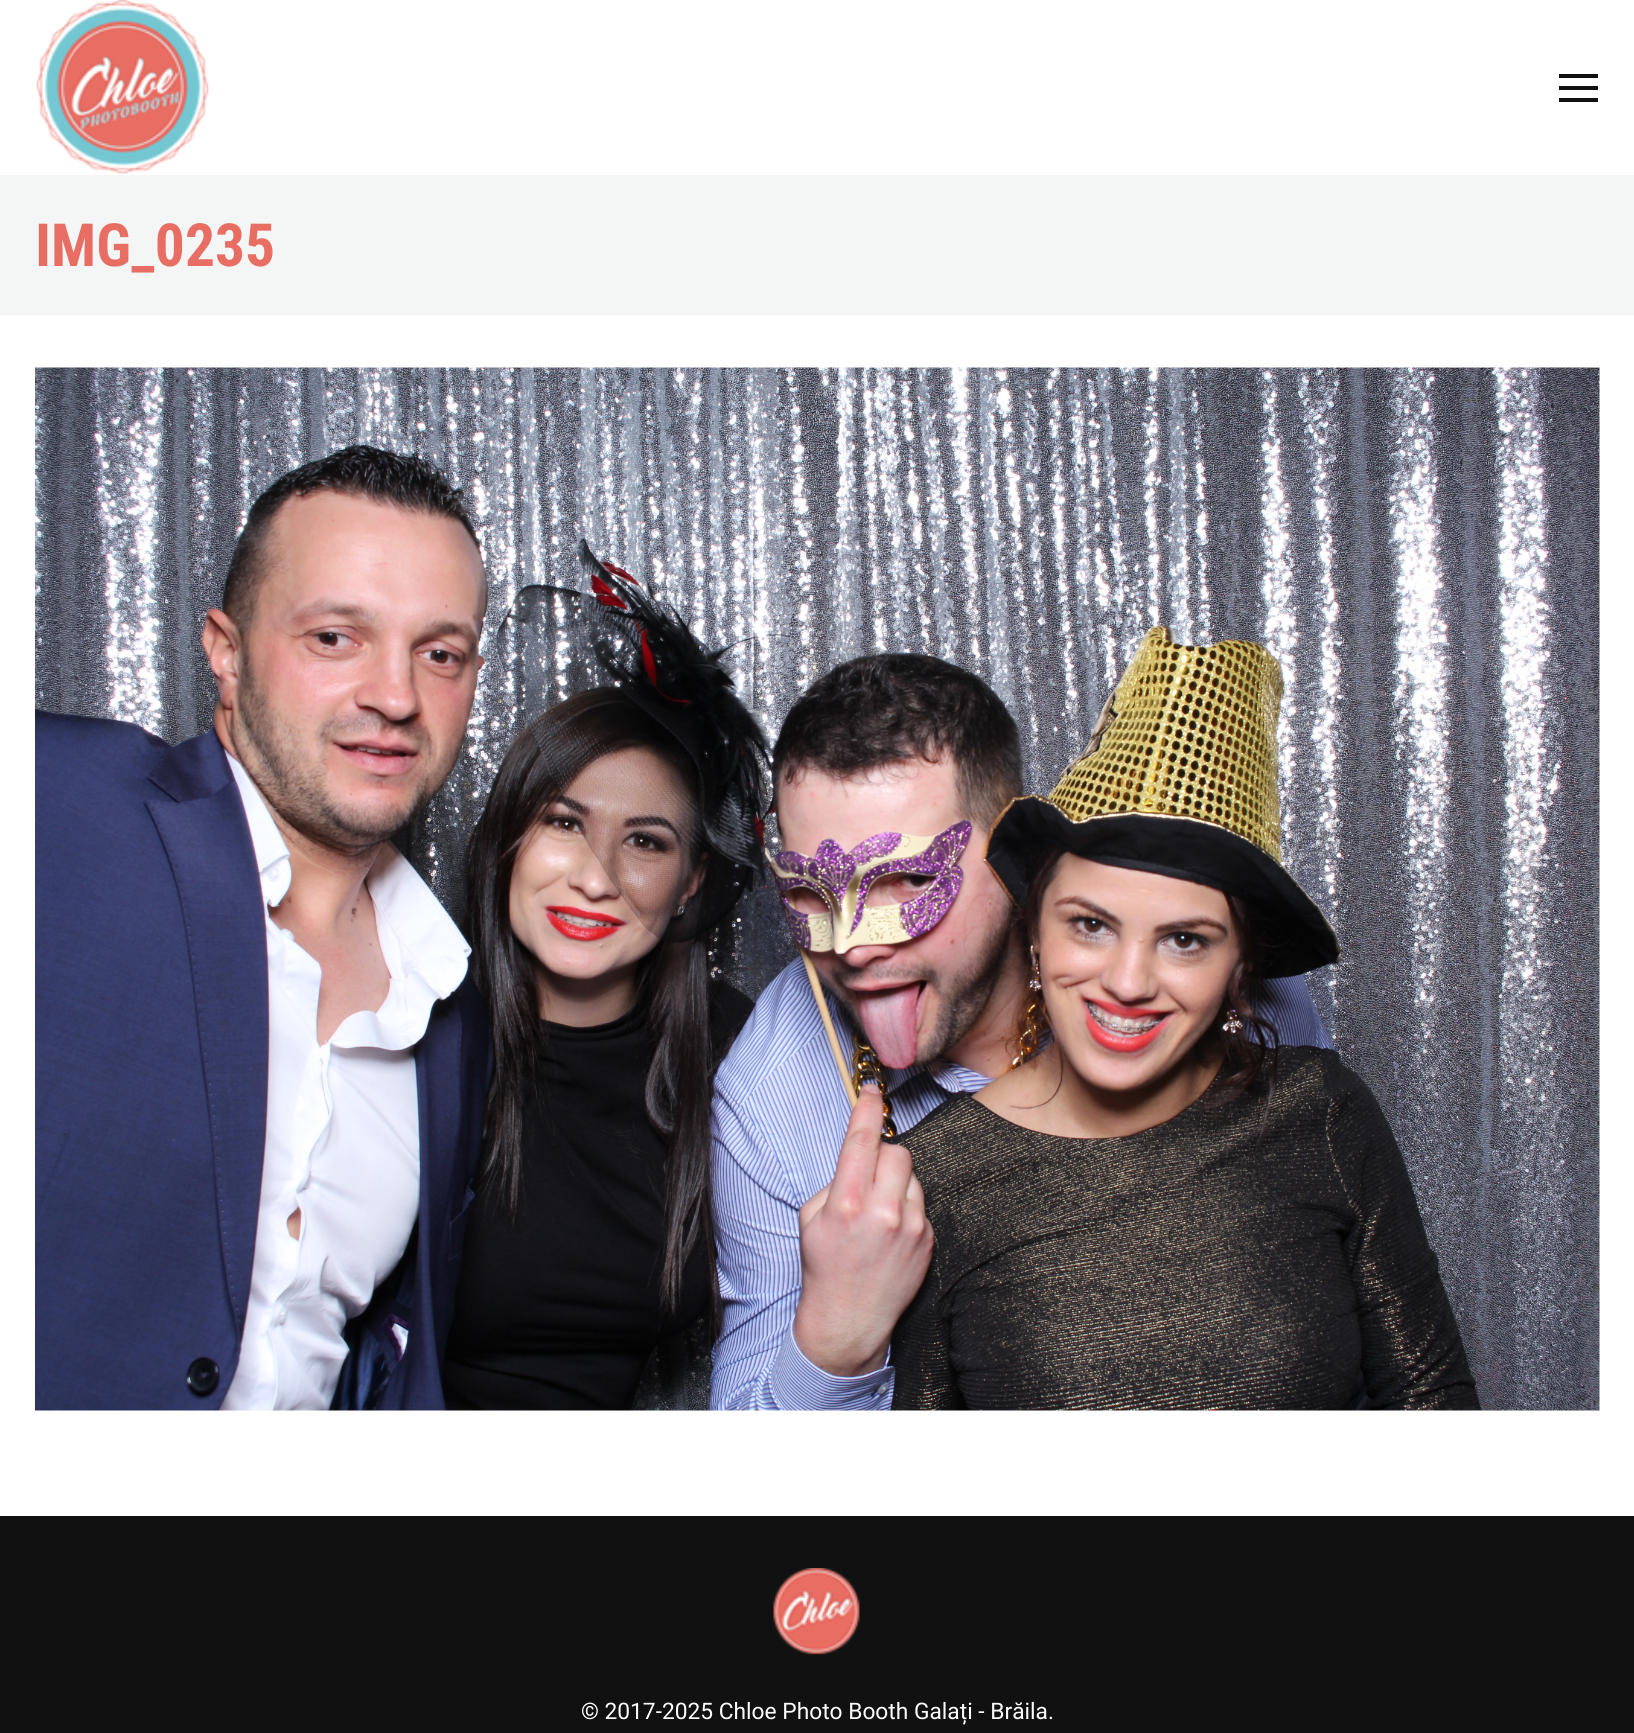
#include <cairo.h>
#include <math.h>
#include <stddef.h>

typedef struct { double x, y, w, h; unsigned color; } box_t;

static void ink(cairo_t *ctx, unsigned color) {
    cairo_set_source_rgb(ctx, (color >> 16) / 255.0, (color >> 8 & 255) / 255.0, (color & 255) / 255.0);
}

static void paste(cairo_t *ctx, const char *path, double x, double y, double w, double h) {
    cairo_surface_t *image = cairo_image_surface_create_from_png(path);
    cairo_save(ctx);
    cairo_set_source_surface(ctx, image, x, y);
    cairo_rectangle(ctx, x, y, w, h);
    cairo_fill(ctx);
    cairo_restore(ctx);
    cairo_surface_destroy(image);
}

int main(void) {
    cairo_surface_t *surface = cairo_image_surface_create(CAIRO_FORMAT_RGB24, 1634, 1733);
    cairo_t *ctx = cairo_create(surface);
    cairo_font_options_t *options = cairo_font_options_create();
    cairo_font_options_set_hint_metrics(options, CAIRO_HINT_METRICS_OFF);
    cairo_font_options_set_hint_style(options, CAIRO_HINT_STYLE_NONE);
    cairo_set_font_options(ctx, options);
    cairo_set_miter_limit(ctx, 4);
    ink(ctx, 0xFFFFFF);
    cairo_paint(ctx);
    paste(ctx, "media/1.png", 36, 0, 173, 174);
    {
        static const box_t items[] = {
            {1559, 74, 39, 4, 0x111111},
            {1559, 86, 39, 4, 0x111111},
            {1559, 98, 39, 4, 0x111111},
            {0, 175, 1634, 140, 0xF4F5F5},
        };
        for (size_t i = 0; i < sizeof items / sizeof *items; i++) {
            ink(ctx, items[i].color);
            cairo_rectangle(ctx, items[i].x, items[i].y, items[i].w, items[i].h);
            cairo_fill(ctx);
        }
    }
    cairo_select_font_face(ctx, "Roboto Condensed", CAIRO_FONT_SLANT_NORMAL, CAIRO_FONT_WEIGHT_BOLD);
    cairo_set_font_size(ctx, 59.5);
    ink(ctx, 0xE86E64);
    cairo_move_to(ctx, 35, 266);
    cairo_show_text(ctx, "IMG_0235");
    paste(ctx, "media/2.png", 35, 367, 1565, 1044);
    ink(ctx, 0x111111);
    cairo_rectangle(ctx, 0, 1516, 1634, 217);
    cairo_fill(ctx);
    paste(ctx, "media/3.png", 773, 1568, 87, 87);
    cairo_select_font_face(ctx, "Roboto", CAIRO_FONT_SLANT_NORMAL, CAIRO_FONT_WEIGHT_NORMAL);
    cairo_set_font_size(ctx, 22.75);
    ink(ctx, 0xFFFFFF);
    cairo_move_to(ctx, 581, 1719);
    cairo_show_text(ctx, "© 2017-2025 Chloe Photo Booth Galați - Brăila.");
    cairo_surface_write_to_png(surface, "image.png");
    cairo_font_options_destroy(options);
    cairo_destroy(ctx);
    cairo_surface_destroy(surface);
    return 0;
}
